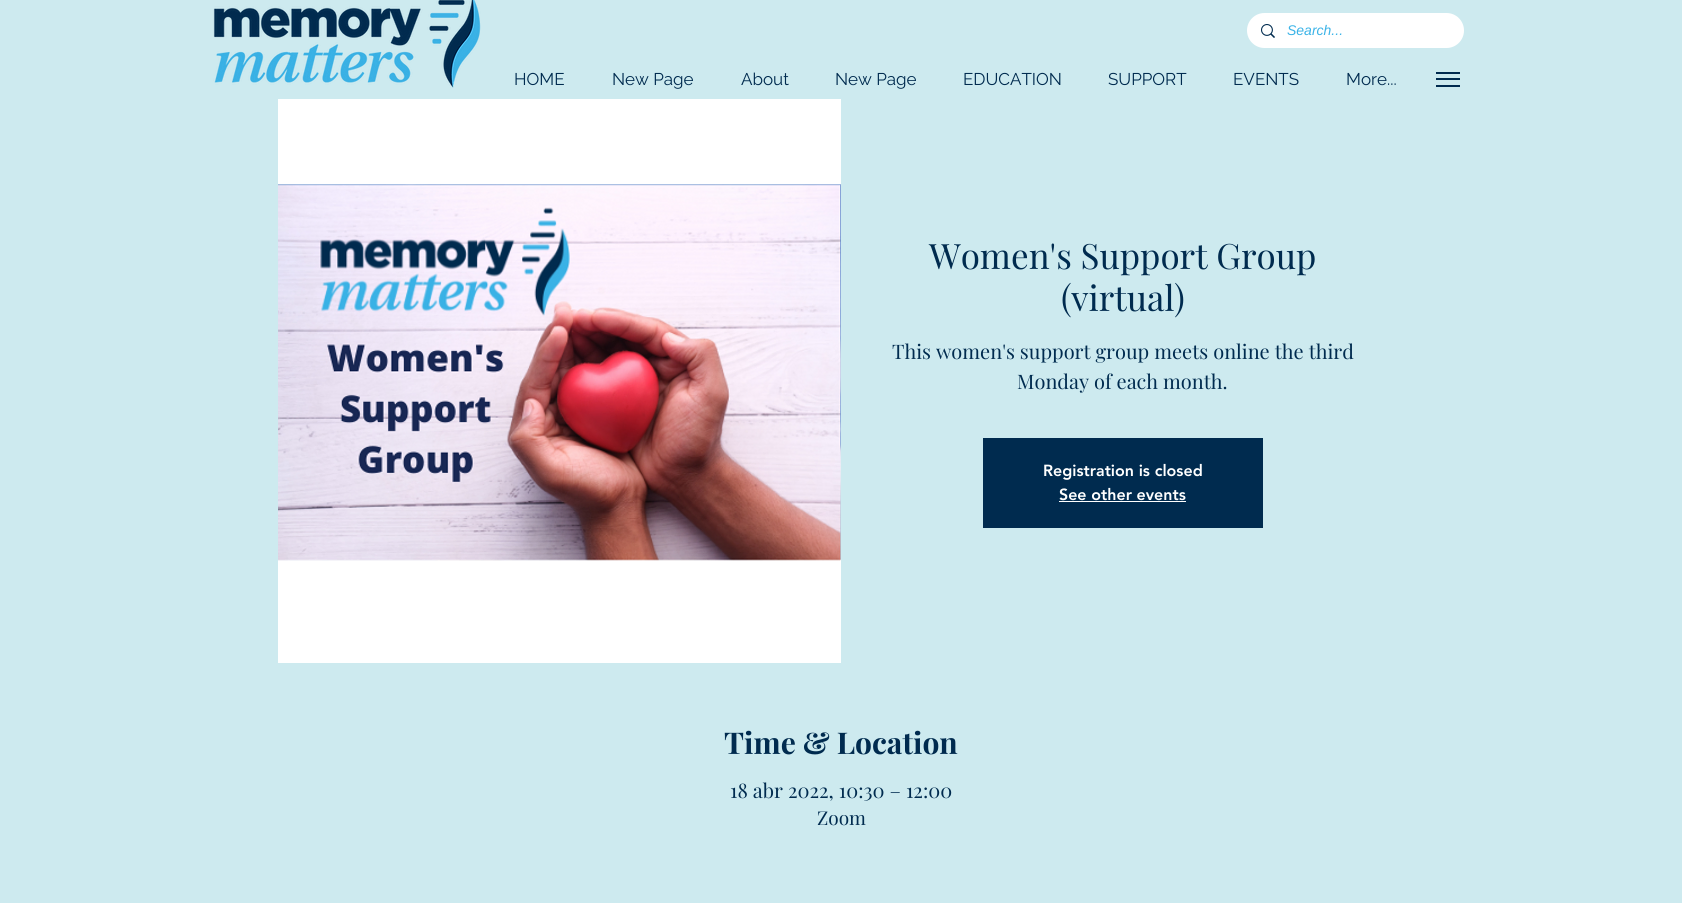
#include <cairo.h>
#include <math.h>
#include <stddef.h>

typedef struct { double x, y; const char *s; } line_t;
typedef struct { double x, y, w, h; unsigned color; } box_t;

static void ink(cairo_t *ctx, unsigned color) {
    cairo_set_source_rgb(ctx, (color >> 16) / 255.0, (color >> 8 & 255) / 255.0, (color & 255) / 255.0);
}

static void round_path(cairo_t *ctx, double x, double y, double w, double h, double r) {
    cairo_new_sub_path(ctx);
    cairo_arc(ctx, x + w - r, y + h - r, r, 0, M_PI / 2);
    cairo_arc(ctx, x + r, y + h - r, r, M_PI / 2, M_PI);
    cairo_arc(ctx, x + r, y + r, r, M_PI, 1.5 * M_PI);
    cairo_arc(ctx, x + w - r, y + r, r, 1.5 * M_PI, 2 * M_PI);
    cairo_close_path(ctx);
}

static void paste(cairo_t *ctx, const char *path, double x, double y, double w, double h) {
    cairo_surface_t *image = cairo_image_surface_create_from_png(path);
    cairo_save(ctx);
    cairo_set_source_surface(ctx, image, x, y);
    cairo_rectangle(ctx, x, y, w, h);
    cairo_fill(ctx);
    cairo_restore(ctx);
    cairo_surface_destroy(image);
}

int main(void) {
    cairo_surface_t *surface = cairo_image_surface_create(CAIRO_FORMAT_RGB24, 1682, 903);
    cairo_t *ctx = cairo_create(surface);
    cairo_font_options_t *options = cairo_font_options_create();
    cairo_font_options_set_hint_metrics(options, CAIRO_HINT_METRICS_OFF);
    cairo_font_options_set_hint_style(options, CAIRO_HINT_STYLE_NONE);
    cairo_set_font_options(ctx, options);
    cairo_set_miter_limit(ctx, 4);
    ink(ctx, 0xCDEAEF);
    cairo_paint(ctx);
    paste(ctx, "media/1.png", 213, 0, 268, 88);
    ink(ctx, 0xFFFFFF);
    round_path(ctx, 1247, 13, 217, 35, 17.5);
    cairo_fill(ctx);
    paste(ctx, "media/2.png", 1261, 24, 14, 14);
    cairo_select_font_face(ctx, "Liberation Sans", CAIRO_FONT_SLANT_ITALIC, CAIRO_FONT_WEIGHT_NORMAL);
    cairo_set_font_size(ctx, 14);
    ink(ctx, 0x3BB3E7);
    cairo_move_to(ctx, 1287, 35);
    cairo_show_text(ctx, "Search...");
    cairo_select_font_face(ctx, "Raleway", CAIRO_FONT_SLANT_NORMAL, CAIRO_FONT_WEIGHT_NORMAL);
    cairo_set_font_size(ctx, 17);
    ink(ctx, 0x002B4F);
    {
        static const line_t items[] = {
            {514, 85, "HOME"},
            {612, 85, "New Page"},
            {741, 85, "About"},
            {835, 85, "New Page"},
            {963, 85, "EDUCATION"},
            {1108, 85, "SUPPORT"},
            {1233, 85, "EVENTS"},
            {1346, 85, "More..."},
        };
        for (size_t i = 0; i < sizeof items / sizeof *items; i++) {
            cairo_move_to(ctx, items[i].x, items[i].y);
            cairo_show_text(ctx, items[i].s);
        }
    }
    {
        static const box_t items[] = {
            {1436, 85, 24, 2, 0x002B4F},
            {1436, 72, 24, 2, 0x002B4F},
            {1436, 78, 24, 2, 0x002B4F},
            {278, 99, 563, 564, 0xFFFFFF},
        };
        for (size_t i = 0; i < sizeof items / sizeof *items; i++) {
            ink(ctx, items[i].color);
            cairo_rectangle(ctx, items[i].x, items[i].y, items[i].w, items[i].h);
            cairo_fill(ctx);
        }
    }
    paste(ctx, "media/3.png", 278, 184, 563, 377);
    cairo_select_font_face(ctx, "Playfair Display", CAIRO_FONT_SLANT_NORMAL, CAIRO_FONT_WEIGHT_NORMAL);
    cairo_set_font_size(ctx, 35);
    ink(ctx, 0x002B4F);
    cairo_move_to(ctx, 929, 269);
    cairo_show_text(ctx, "Women's Support Group");
    cairo_move_to(ctx, 1061, 311);
    cairo_show_text(ctx, "(virtual)");
    cairo_set_font_size(ctx, 20);
    cairo_move_to(ctx, 892, 359);
    cairo_show_text(ctx, "This women's support group meets online the third");
    cairo_move_to(ctx, 1017, 389);
    cairo_show_text(ctx, "Monday of each month.");
    cairo_rectangle(ctx, 983, 438, 280, 90);
    cairo_fill(ctx);
    cairo_select_font_face(ctx, "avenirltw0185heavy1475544 Black", CAIRO_FONT_SLANT_NORMAL, CAIRO_FONT_WEIGHT_NORMAL);
    cairo_set_font_size(ctx, 16);
    ink(ctx, 0xFFFFFF);
    cairo_move_to(ctx, 1043, 476);
    cairo_show_text(ctx, "Registration is closed");
    cairo_move_to(ctx, 1059, 500);
    cairo_show_text(ctx, "See other events");
    cairo_rectangle(ctx, 1059, 501, 127, 1);
    cairo_fill(ctx);
    cairo_select_font_face(ctx, "Playfair Display", CAIRO_FONT_SLANT_NORMAL, CAIRO_FONT_WEIGHT_BOLD);
    cairo_set_font_size(ctx, 30);
    ink(ctx, 0x002B4F);
    cairo_move_to(ctx, 724, 754);
    cairo_show_text(ctx, "Time & Location");
    cairo_select_font_face(ctx, "Playfair Display", CAIRO_FONT_SLANT_NORMAL, CAIRO_FONT_WEIGHT_NORMAL);
    cairo_set_font_size(ctx, 20);
    cairo_move_to(ctx, 730, 798);
    cairo_show_text(ctx, "18 abr 2022, 10:30 – 12:00");
    cairo_set_font_size(ctx, 19);
    cairo_move_to(ctx, 817, 825);
    cairo_show_text(ctx, "Zoom");
    cairo_surface_write_to_png(surface, "image.png");
    cairo_font_options_destroy(options);
    cairo_destroy(ctx);
    cairo_surface_destroy(surface);
    return 0;
}
